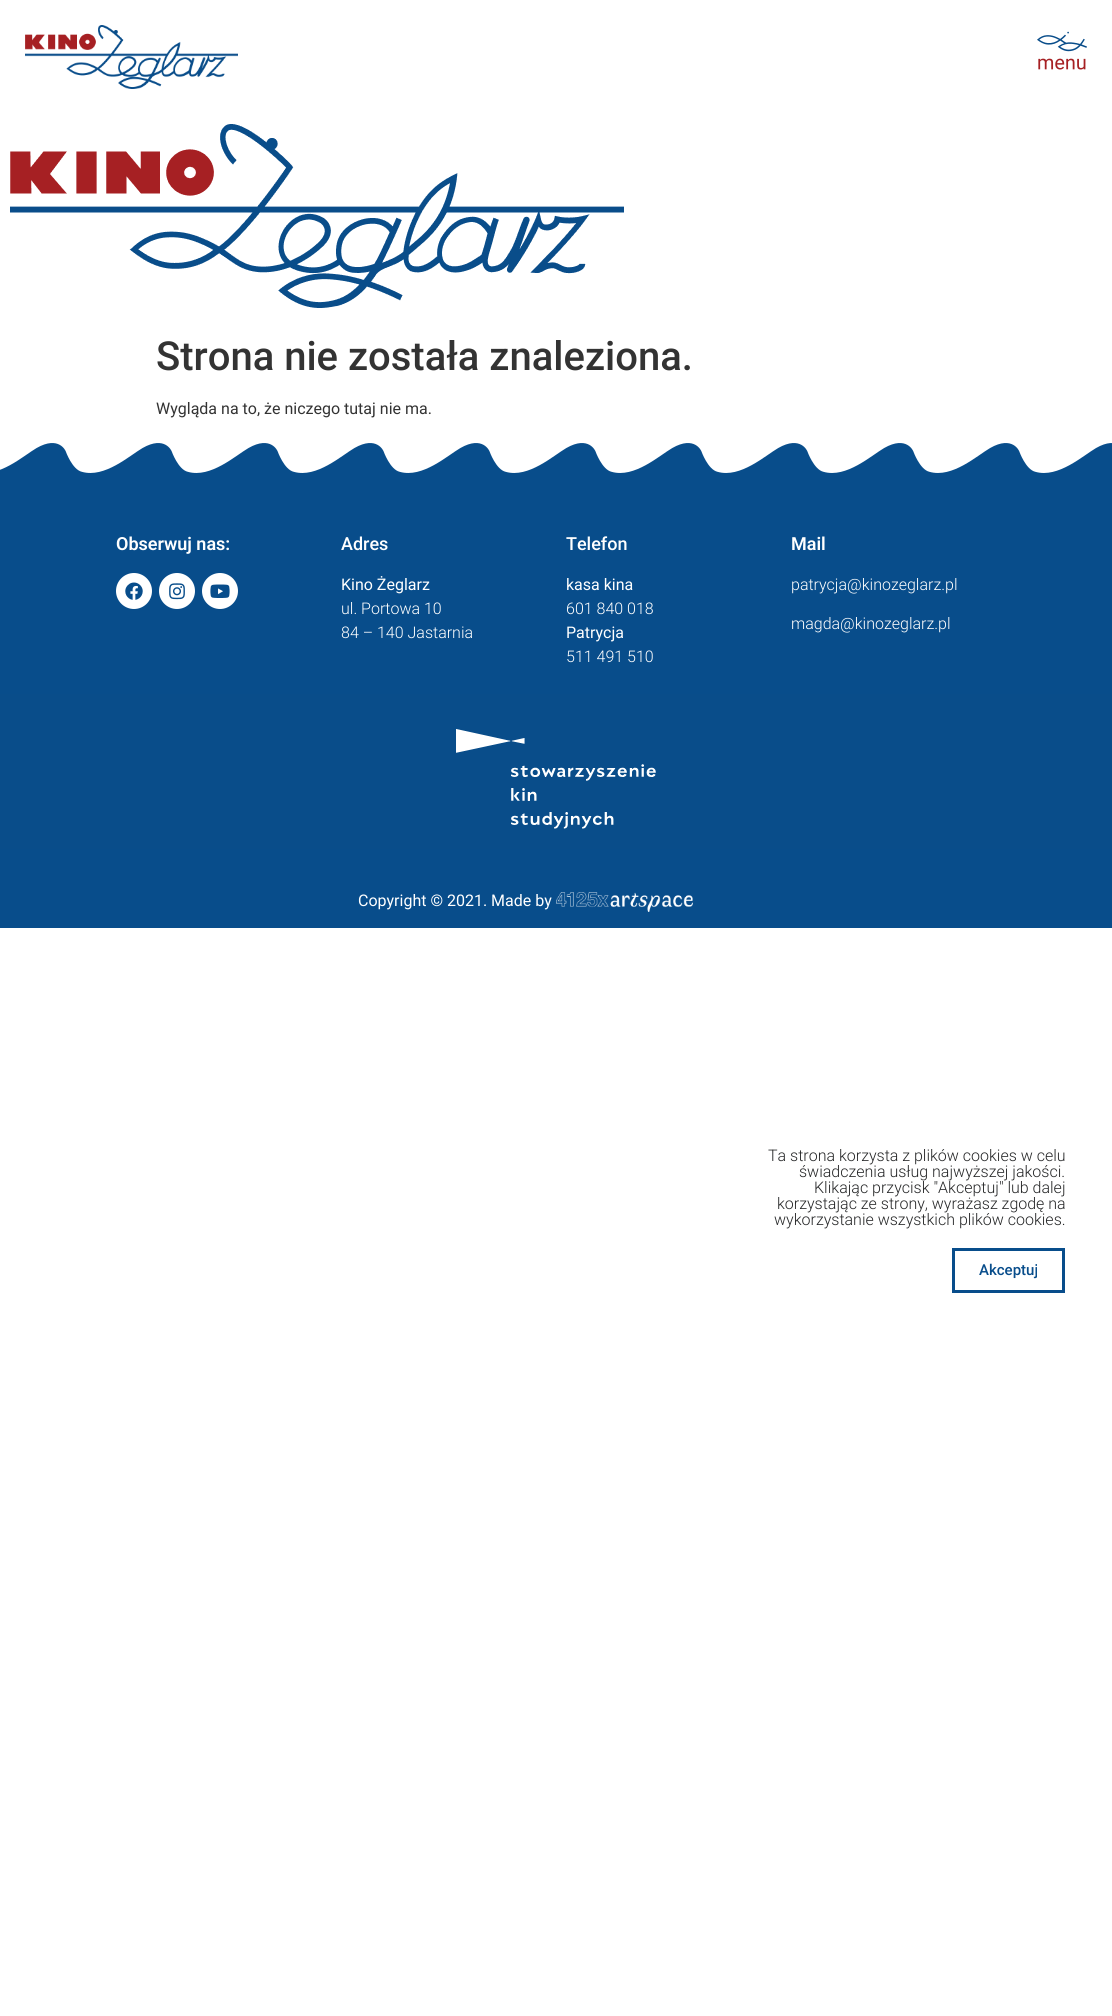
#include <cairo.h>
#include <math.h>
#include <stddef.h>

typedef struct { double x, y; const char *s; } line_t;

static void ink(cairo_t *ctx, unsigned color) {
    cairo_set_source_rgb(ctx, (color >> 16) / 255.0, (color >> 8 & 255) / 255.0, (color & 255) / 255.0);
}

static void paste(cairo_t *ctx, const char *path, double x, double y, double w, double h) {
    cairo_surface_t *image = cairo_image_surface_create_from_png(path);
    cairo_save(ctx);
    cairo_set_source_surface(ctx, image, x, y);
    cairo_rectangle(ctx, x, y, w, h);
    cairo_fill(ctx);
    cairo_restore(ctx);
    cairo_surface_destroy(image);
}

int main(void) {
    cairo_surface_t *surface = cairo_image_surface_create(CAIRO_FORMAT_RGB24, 1112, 2016);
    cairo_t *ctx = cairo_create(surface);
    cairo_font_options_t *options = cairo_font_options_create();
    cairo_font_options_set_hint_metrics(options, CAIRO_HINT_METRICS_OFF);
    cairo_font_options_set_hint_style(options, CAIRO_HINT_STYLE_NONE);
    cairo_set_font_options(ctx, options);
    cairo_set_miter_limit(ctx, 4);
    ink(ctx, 0xFFFFFF);
    cairo_paint(ctx);
    paste(ctx, "media/1.png", 25, 25, 213, 64);
    paste(ctx, "media/2.png", 1037, 31, 50, 39);
    paste(ctx, "media/3.png", 10, 124, 614, 184);
    cairo_select_font_face(ctx, "Roboto Medium", CAIRO_FONT_SLANT_NORMAL, CAIRO_FONT_WEIGHT_NORMAL);
    cairo_set_font_size(ctx, 40);
    ink(ctx, 0x333333);
    cairo_move_to(ctx, 156, 370);
    cairo_show_text(ctx, "Strona nie została znaleziona.");
    cairo_select_font_face(ctx, "Roboto", CAIRO_FONT_SLANT_NORMAL, CAIRO_FONT_WEIGHT_NORMAL);
    cairo_set_font_size(ctx, 16);
    cairo_move_to(ctx, 156, 414);
    cairo_show_text(ctx, "Wygląda na to, że niczego tutaj nie ma.");
    ink(ctx, 0x084D8B);
    cairo_rectangle(ctx, 0, 443, 1112, 251);
    cairo_fill(ctx);
    paste(ctx, "media/4.png", 0, 435, 1112, 38);
    cairo_select_font_face(ctx, "Roboto SemiBold", CAIRO_FONT_SLANT_NORMAL, CAIRO_FONT_WEIGHT_NORMAL);
    cairo_set_font_size(ctx, 18);
    ink(ctx, 0xFFFFFF);
    cairo_move_to(ctx, 116, 550);
    cairo_show_text(ctx, "Obserwuj nas:");
    cairo_new_path(ctx);
    cairo_arc(ctx, 134, 591, 18, 0, 2 * M_PI);
    cairo_fill(ctx);
    paste(ctx, "media/5.png", 125, 582, 18, 18);
    cairo_arc(ctx, 177, 591, 18, 0, 2 * M_PI);
    cairo_fill(ctx);
    paste(ctx, "media/6.png", 169, 583, 16, 17);
    cairo_arc(ctx, 220, 591, 18, 0, 2 * M_PI);
    cairo_fill(ctx);
    paste(ctx, "media/7.png", 210, 584, 20, 14);
    cairo_select_font_face(ctx, "Roboto Medium", CAIRO_FONT_SLANT_NORMAL, CAIRO_FONT_WEIGHT_NORMAL);
    cairo_move_to(ctx, 341, 550);
    cairo_show_text(ctx, "Adres");
    cairo_select_font_face(ctx, "Roboto", CAIRO_FONT_SLANT_NORMAL, CAIRO_FONT_WEIGHT_NORMAL);
    cairo_set_font_size(ctx, 16);
    cairo_move_to(ctx, 341, 590);
    cairo_show_text(ctx, "Kino Żeglarz");
    cairo_select_font_face(ctx, "Roboto Light", CAIRO_FONT_SLANT_NORMAL, CAIRO_FONT_WEIGHT_NORMAL);
    cairo_move_to(ctx, 341, 614);
    cairo_show_text(ctx, "ul. Portowa 10");
    cairo_move_to(ctx, 341, 638);
    cairo_show_text(ctx, "84 – 140 Jastarnia");
    cairo_select_font_face(ctx, "Roboto Medium", CAIRO_FONT_SLANT_NORMAL, CAIRO_FONT_WEIGHT_NORMAL);
    cairo_set_font_size(ctx, 18);
    cairo_move_to(ctx, 566, 550);
    cairo_show_text(ctx, "Telefon");
    cairo_select_font_face(ctx, "Roboto", CAIRO_FONT_SLANT_NORMAL, CAIRO_FONT_WEIGHT_NORMAL);
    cairo_set_font_size(ctx, 16);
    cairo_move_to(ctx, 566, 590);
    cairo_show_text(ctx, "kasa kina");
    cairo_select_font_face(ctx, "Roboto Light", CAIRO_FONT_SLANT_NORMAL, CAIRO_FONT_WEIGHT_NORMAL);
    cairo_move_to(ctx, 566, 614);
    cairo_show_text(ctx, "601 840 018");
    cairo_select_font_face(ctx, "Roboto", CAIRO_FONT_SLANT_NORMAL, CAIRO_FONT_WEIGHT_NORMAL);
    cairo_move_to(ctx, 566, 638);
    cairo_show_text(ctx, "Patrycja");
    cairo_select_font_face(ctx, "Roboto Light", CAIRO_FONT_SLANT_NORMAL, CAIRO_FONT_WEIGHT_NORMAL);
    cairo_move_to(ctx, 566, 662);
    cairo_show_text(ctx, "511 491 510");
    cairo_select_font_face(ctx, "Roboto SemiBold", CAIRO_FONT_SLANT_NORMAL, CAIRO_FONT_WEIGHT_NORMAL);
    cairo_set_font_size(ctx, 18);
    cairo_move_to(ctx, 791, 550);
    cairo_show_text(ctx, "Mail");
    cairo_select_font_face(ctx, "Roboto Light", CAIRO_FONT_SLANT_NORMAL, CAIRO_FONT_WEIGHT_NORMAL);
    cairo_set_font_size(ctx, 16);
    cairo_move_to(ctx, 791, 590);
    cairo_show_text(ctx, "patrycja@kinozeglarz.pl");
    cairo_move_to(ctx, 791, 629);
    cairo_show_text(ctx, "magda@kinozeglarz.pl");
    ink(ctx, 0x094D8A);
    cairo_rectangle(ctx, 0, 694, 1112, 155);
    cairo_fill(ctx);
    paste(ctx, "media/8.png", 456, 729, 200, 100);
    ink(ctx, 0x084D8B);
    cairo_rectangle(ctx, 0, 849, 1112, 79);
    cairo_fill(ctx);
    cairo_select_font_face(ctx, "Roboto", CAIRO_FONT_SLANT_NORMAL, CAIRO_FONT_WEIGHT_NORMAL);
    ink(ctx, 0xFFFFFF);
    cairo_move_to(ctx, 358, 906);
    cairo_show_text(ctx, "Copyright © 2021. Made by");
    paste(ctx, "media/9.png", 556, 892, 137, 20);
    cairo_select_font_face(ctx, "Roboto Light", CAIRO_FONT_SLANT_NORMAL, CAIRO_FONT_WEIGHT_NORMAL);
    ink(ctx, 0x262728);
    {
        static const line_t items[] = {
            {768, 1161, "Ta strona korzysta z plików cookies w celu"},
            {799, 1177, "świadczenia usług najwyższej jakości."},
            {814, 1193, "Klikając przycisk \"Akceptuj\" lub dalej"},
            {777, 1209, "korzystając ze strony, wyrażasz zgodę na"},
            {774, 1225, "wykorzystanie wszystkich plików cookies."},
        };
        for (size_t i = 0; i < sizeof items / sizeof *items; i++) {
            cairo_move_to(ctx, items[i].x, items[i].y);
            cairo_show_text(ctx, items[i].s);
        }
    }
    cairo_rectangle(ctx, 953.5, 1249.5, 110, 42);
    ink(ctx, 0x084D8B);
    cairo_set_line_width(ctx, 3);
    cairo_stroke(ctx);
    cairo_select_font_face(ctx, "Roboto Medium", CAIRO_FONT_SLANT_NORMAL, CAIRO_FONT_WEIGHT_NORMAL);
    cairo_set_font_size(ctx, 15);
    cairo_move_to(ctx, 979, 1275);
    cairo_show_text(ctx, "Akceptuj");
    cairo_surface_write_to_png(surface, "image.png");
    cairo_font_options_destroy(options);
    cairo_destroy(ctx);
    cairo_surface_destroy(surface);
    return 0;
}
